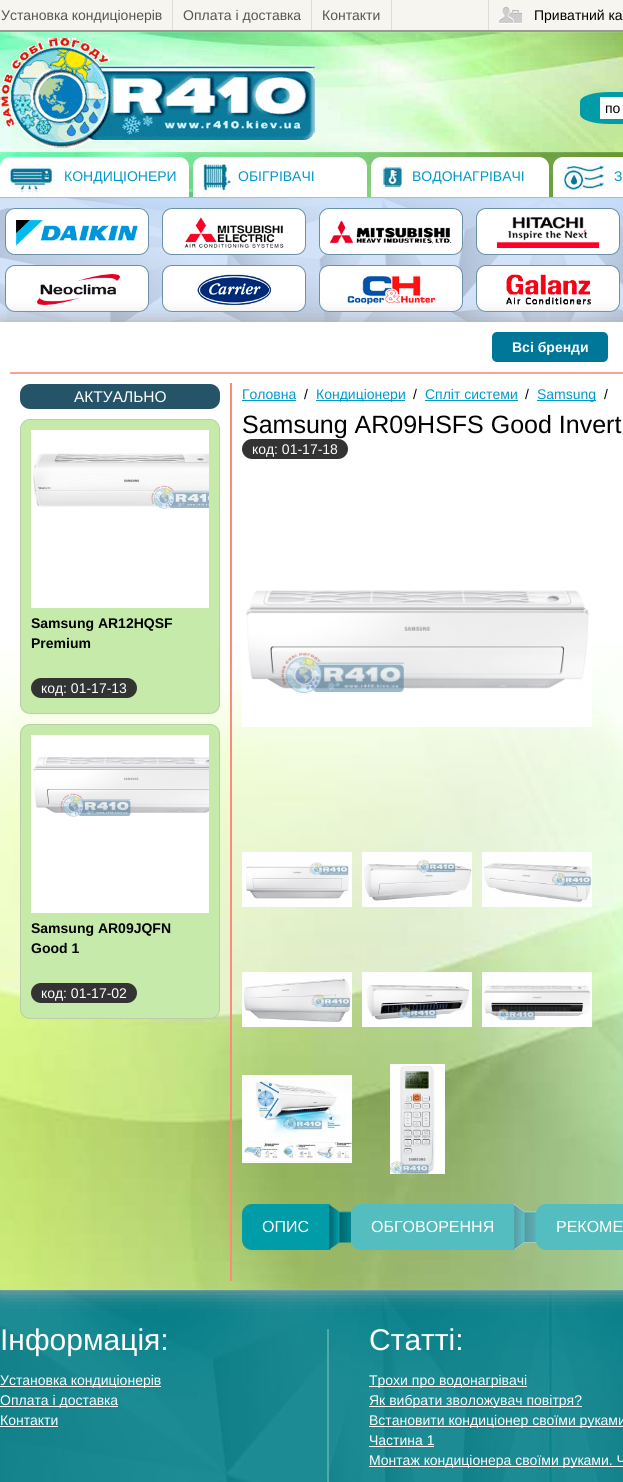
#include <cairo.h>
#include <math.h>
#include <stddef.h>

typedef struct { double x, y, w, h; unsigned color; } box_t;

static void ink(cairo_t *ctx, unsigned color) {
    cairo_set_source_rgb(ctx, (color >> 16) / 255.0, (color >> 8 & 255) / 255.0, (color & 255) / 255.0);
}

static void round_path(cairo_t *ctx, double x, double y, double w, double h, double r) {
    cairo_new_sub_path(ctx);
    cairo_arc(ctx, x + w - r, y + h - r, r, 0, M_PI / 2);
    cairo_arc(ctx, x + r, y + h - r, r, M_PI / 2, M_PI);
    cairo_arc(ctx, x + r, y + r, r, M_PI, 1.5 * M_PI);
    cairo_arc(ctx, x + w - r, y + r, r, 1.5 * M_PI, 2 * M_PI);
    cairo_close_path(ctx);
}

static void blur_box(cairo_t *ctx, double x, double y, double w, double h, double r, double blur, double alpha) {
    cairo_push_group_with_content(ctx, CAIRO_CONTENT_ALPHA);
    cairo_set_operator(ctx, CAIRO_OPERATOR_SOURCE);
    for (int i = 15; i >= -15 && fmin(w, h) + blur * i / 3 > 0; i -= 2) {
        double e = blur * i / 6;
        cairo_set_source_rgba(ctx, 0, 0, 0, alpha * erfc((i - 1) / 8.5) / 2);
        round_path(ctx, x - e, y - e, w + 2 * e, h + 2 * e, fmax(0, fmin(r + e + blur * .6, fmin(w, h) / 2 + e)));
        cairo_fill(ctx);
    }
    cairo_pattern_t *soft = cairo_pop_group(ctx);
    cairo_mask(ctx, soft);
    cairo_pattern_destroy(soft);
}

static void paste(cairo_t *ctx, const char *path, double x, double y, double w, double h) {
    cairo_surface_t *image = cairo_image_surface_create_from_png(path);
    cairo_save(ctx);
    cairo_set_source_surface(ctx, image, x, y);
    cairo_rectangle(ctx, x, y, w, h);
    cairo_fill(ctx);
    cairo_restore(ctx);
    cairo_surface_destroy(image);
}

int main(void) {
    cairo_surface_t *surface = cairo_image_surface_create(CAIRO_FORMAT_RGB24, 623, 1482);
    cairo_t *ctx = cairo_create(surface);
    cairo_font_options_t *options = cairo_font_options_create();
    cairo_font_options_set_hint_metrics(options, CAIRO_HINT_METRICS_OFF);
    cairo_font_options_set_hint_style(options, CAIRO_HINT_STYLE_NONE);
    cairo_set_font_options(ctx, options);
    cairo_set_miter_limit(ctx, 4);
    cairo_pattern_t *gradient;
    ink(ctx, 0xFFFFFF);
    cairo_paint(ctx);
    {
        static const box_t items[] = {
            {0, 0, 623, 30, 0xF7F5EF},
            {0, 30, 623, 2, 0x9A9996},
            {172, 0, 1, 30, 0xDCDCDC},
        };
        for (size_t i = 0; i < sizeof items / sizeof *items; i++) {
            ink(ctx, items[i].color);
            cairo_rectangle(ctx, items[i].x, items[i].y, items[i].w, items[i].h);
            cairo_fill(ctx);
        }
    }
    cairo_select_font_face(ctx, "Liberation Sans", CAIRO_FONT_SLANT_NORMAL, CAIRO_FONT_WEIGHT_NORMAL);
    cairo_set_font_size(ctx, 14);
    ink(ctx, 0x555555);
    cairo_move_to(ctx, 1, 20);
    cairo_show_text(ctx, "Установка кондиціонерів");
    ink(ctx, 0xDCDCDC);
    cairo_rectangle(ctx, 311, 0, 1, 30);
    cairo_fill(ctx);
    ink(ctx, 0x555555);
    cairo_move_to(ctx, 183, 20);
    cairo_show_text(ctx, "Оплата і доставка");
    ink(ctx, 0xDCDCDC);
    cairo_rectangle(ctx, 391, 0, 1, 30);
    cairo_fill(ctx);
    ink(ctx, 0x555555);
    cairo_move_to(ctx, 322, 20);
    cairo_show_text(ctx, "Контакти");
    paste(ctx, "media/1.png", 499, 7, 23, 17);
    ink(ctx, 0xDCDCDC);
    cairo_rectangle(ctx, 488, 0, 1, 30);
    cairo_fill(ctx);
    ink(ctx, 0x000000);
    cairo_move_to(ctx, 534, 20);
    cairo_show_text(ctx, "Приватний ка");
    paste(ctx, "media/2.png", 0, 32, 623, 120);
    paste(ctx, "media/3.png", 0, 38, 315, 110);
    gradient = cairo_pattern_create_linear(580, 108, 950, 108);
    cairo_pattern_add_color_stop_rgba(gradient, 0, 0, 0.612, 0.659, 1);
    cairo_pattern_add_color_stop_rgba(gradient, 0.5, 0, 0.612, 0.659, 1);
    cairo_pattern_add_color_stop_rgba(gradient, 1, 0, 0.404, 0.435, 1);
    cairo_set_source(ctx, gradient);
    cairo_pattern_destroy(gradient);
    cairo_new_path(ctx);
    cairo_move_to(ctx, 610, 92);
    cairo_line_to(ctx, 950, 92);
    cairo_line_to(ctx, 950, 124);
    cairo_line_to(ctx, 610, 124);
    cairo_curve_to(ctx, 593, 124, 580, 120, 580, 114);
    cairo_line_to(ctx, 580, 102);
    cairo_curve_to(ctx, 580, 96, 593, 92, 610, 92);
    cairo_close_path(ctx);
    cairo_fill(ctx);
    ink(ctx, 0xFFFFFF);
    cairo_rectangle(ctx, 600, 97, 23, 22);
    cairo_fill(ctx);
    ink(ctx, 0x000000);
    cairo_move_to(ctx, 605, 113);
    cairo_show_text(ctx, "по");
    paste(ctx, "media/4.png", 0, 152, 623, 45);
    ink(ctx, 0xB2C0B6);
    cairo_rectangle(ctx, 0, 197, 623, 1);
    cairo_fill(ctx);
    ink(ctx, 0xFFFFFF);
    cairo_new_path(ctx);
    cairo_move_to(ctx, 10, 157);
    cairo_line_to(ctx, 179, 157);
    cairo_curve_to(ctx, 184.5, 157, 189, 161.5, 189, 167);
    cairo_line_to(ctx, 189, 197);
    cairo_line_to(ctx, 0, 197);
    cairo_line_to(ctx, 0, 167);
    cairo_curve_to(ctx, 0, 161.5, 4.5, 157, 10, 157);
    cairo_close_path(ctx);
    cairo_fill(ctx);
    paste(ctx, "media/5.png", 10, 165, 48, 32);
    ink(ctx, 0x0099CB);
    cairo_move_to(ctx, 64, 181);
    cairo_show_text(ctx, "КОНДИЦІОНЕРИ");
    ink(ctx, 0xFFFFFF);
    cairo_new_path(ctx);
    cairo_move_to(ctx, 203, 157);
    cairo_line_to(ctx, 357, 157);
    cairo_curve_to(ctx, 362.5, 157, 367, 161.5, 367, 167);
    cairo_line_to(ctx, 367, 197);
    cairo_line_to(ctx, 193, 197);
    cairo_line_to(ctx, 193, 167);
    cairo_curve_to(ctx, 193, 161.5, 197.5, 157, 203, 157);
    cairo_close_path(ctx);
    cairo_fill(ctx);
    paste(ctx, "media/6.png", 203, 157, 32, 40);
    ink(ctx, 0x0099CB);
    cairo_move_to(ctx, 238, 181);
    cairo_show_text(ctx, "ОБІГРІВАЧІ");
    ink(ctx, 0xFFFFFF);
    cairo_new_path(ctx);
    cairo_move_to(ctx, 381, 157);
    cairo_line_to(ctx, 539, 157);
    cairo_curve_to(ctx, 544.5, 157, 549, 161.5, 549, 167);
    cairo_line_to(ctx, 549, 197);
    cairo_line_to(ctx, 371, 197);
    cairo_line_to(ctx, 371, 167);
    cairo_curve_to(ctx, 371, 161.5, 375.5, 157, 381, 157);
    cairo_close_path(ctx);
    cairo_fill(ctx);
    paste(ctx, "media/7.png", 381, 165, 25, 24);
    ink(ctx, 0x0099CB);
    cairo_move_to(ctx, 412, 181);
    cairo_show_text(ctx, "ВОДОНАГРІВАЧІ");
    ink(ctx, 0xFFFFFF);
    cairo_new_path(ctx);
    cairo_move_to(ctx, 563, 157);
    cairo_line_to(ctx, 623, 157);
    cairo_curve_to(ctx, 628.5, 157, 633, 161.5, 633, 167);
    cairo_line_to(ctx, 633, 197);
    cairo_line_to(ctx, 553, 197);
    cairo_line_to(ctx, 553, 167);
    cairo_curve_to(ctx, 553, 161.5, 557.5, 157, 563, 157);
    cairo_close_path(ctx);
    cairo_fill(ctx);
    paste(ctx, "media/8.png", 563, 165, 47, 32);
    ink(ctx, 0x0099CB);
    cairo_move_to(ctx, 614, 181);
    cairo_show_text(ctx, "З");
    paste(ctx, "media/9.png", 0, 198, 623, 124);
    ink(ctx, 0xFFFFFF);
    round_path(ctx, 5.5, 208.5, 143, 46, 9.5);
    cairo_fill_preserve(ctx);
    ink(ctx, 0x6B90A9);
    cairo_set_line_width(ctx, 1);
    cairo_stroke(ctx);
    paste(ctx, "media/10.png", 16, 220, 122, 26);
    ink(ctx, 0xFFFFFF);
    round_path(ctx, 162.5, 208.5, 143, 46, 9.5);
    cairo_fill_preserve(ctx);
    ink(ctx, 0x6B90A9);
    cairo_stroke(ctx);
    paste(ctx, "media/11.png", 184, 217, 100, 31);
    ink(ctx, 0xFFFFFF);
    round_path(ctx, 319.5, 208.5, 143, 46, 9.5);
    cairo_fill_preserve(ctx);
    ink(ctx, 0x6B90A9);
    cairo_stroke(ctx);
    paste(ctx, "media/12.png", 330, 220, 122, 24);
    ink(ctx, 0xFFFFFF);
    round_path(ctx, 476.5, 208.5, 143, 46, 9.5);
    cairo_fill_preserve(ctx);
    ink(ctx, 0x6B90A9);
    cairo_stroke(ctx);
    paste(ctx, "media/13.png", 496, 217, 104, 31);
    ink(ctx, 0xFFFFFF);
    round_path(ctx, 5.5, 265.5, 143, 46, 9.5);
    cairo_fill_preserve(ctx);
    ink(ctx, 0x6B90A9);
    cairo_stroke(ctx);
    paste(ctx, "media/14.png", 36, 274, 84, 31);
    ink(ctx, 0xFFFFFF);
    round_path(ctx, 162.5, 265.5, 143, 46, 9.5);
    cairo_fill_preserve(ctx);
    ink(ctx, 0x6B90A9);
    cairo_stroke(ctx);
    paste(ctx, "media/15.png", 197, 274, 75, 31);
    ink(ctx, 0xFFFFFF);
    round_path(ctx, 319.5, 265.5, 143, 46, 9.5);
    cairo_fill_preserve(ctx);
    ink(ctx, 0x6B90A9);
    cairo_stroke(ctx);
    paste(ctx, "media/16.png", 347, 276, 89, 29);
    ink(ctx, 0xFFFFFF);
    round_path(ctx, 476.5, 265.5, 143, 46, 9.5);
    cairo_fill_preserve(ctx);
    ink(ctx, 0x6B90A9);
    cairo_stroke(ctx);
    paste(ctx, "media/17.png", 506, 274, 85, 31);
    paste(ctx, "media/32.png", 0, 1290, 623, 192);
    cairo_save(ctx);
    cairo_set_fill_rule(ctx, CAIRO_FILL_RULE_EVEN_ODD);
    cairo_new_path(ctx);
    cairo_move_to(ctx, 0, 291);
    cairo_line_to(ctx, 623, 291);
    cairo_line_to(ctx, 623, 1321);
    cairo_line_to(ctx, 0, 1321);
    cairo_close_path(ctx);
    cairo_move_to(ctx, 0, 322);
    cairo_line_to(ctx, 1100, 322);
    cairo_line_to(ctx, 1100, 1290);
    cairo_line_to(ctx, 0, 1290);
    cairo_close_path(ctx);
    cairo_clip(ctx);
    ink(ctx, 0xAAAAAA);
    blur_box(ctx, 0, 322, 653, 968, 0, 10, 1);
    cairo_restore(ctx);
    paste(ctx, "media/18.png", 0, 642, 623, 648);
    ink(ctx, 0x007698);
    round_path(ctx, 492, 332, 116, 30, 5);
    cairo_fill(ctx);
    cairo_select_font_face(ctx, "Liberation Sans", CAIRO_FONT_SLANT_NORMAL, CAIRO_FONT_WEIGHT_BOLD);
    ink(ctx, 0xFFFFFF);
    cairo_move_to(ctx, 512, 352);
    cairo_show_text(ctx, "Всі бренди");
    ink(ctx, 0xFDA194);
    cairo_rectangle(ctx, 10, 372, 613, 2);
    cairo_fill(ctx);
    ink(ctx, 0xFD8A7C);
    cairo_rectangle(ctx, 230, 383, 2, 898);
    cairo_fill(ctx);
    ink(ctx, 0x255468);
    round_path(ctx, 20, 384, 200, 25, 10);
    cairo_fill(ctx);
    cairo_select_font_face(ctx, "Liberation Sans", CAIRO_FONT_SLANT_NORMAL, CAIRO_FONT_WEIGHT_NORMAL);
    cairo_set_font_size(ctx, 15.5);
    ink(ctx, 0xFFFFFF);
    cairo_move_to(ctx, 74, 402);
    cairo_show_text(ctx, "АКТУАЛЬНО");
    ink(ctx, 0xC5EAAA);
    round_path(ctx, 20.5, 419.5, 199, 294, 9.5);
    cairo_fill_preserve(ctx);
    ink(ctx, 0xB9CEA9);
    cairo_stroke(ctx);
    ink(ctx, 0xFFFFFF);
    cairo_rectangle(ctx, 31, 430, 178, 178);
    cairo_fill(ctx);
    paste(ctx, "media/19.png", 33, 453, 176, 56);
    cairo_select_font_face(ctx, "Liberation Sans", CAIRO_FONT_SLANT_NORMAL, CAIRO_FONT_WEIGHT_BOLD);
    cairo_set_font_size(ctx, 14);
    ink(ctx, 0x000000);
    cairo_move_to(ctx, 31, 628);
    cairo_show_text(ctx, "Samsung AR12HQSF");
    cairo_move_to(ctx, 31, 648);
    cairo_show_text(ctx, "Premium");
    ink(ctx, 0x333333);
    round_path(ctx, 31, 678, 106, 20, 10);
    cairo_fill(ctx);
    cairo_select_font_face(ctx, "Liberation Sans", CAIRO_FONT_SLANT_NORMAL, CAIRO_FONT_WEIGHT_NORMAL);
    ink(ctx, 0xFFFFFF);
    cairo_move_to(ctx, 41, 693);
    cairo_show_text(ctx, "код: 01-17-13");
    ink(ctx, 0xC5EAAA);
    round_path(ctx, 20.5, 724.5, 199, 294, 9.5);
    cairo_fill_preserve(ctx);
    ink(ctx, 0xB9CEA9);
    cairo_stroke(ctx);
    ink(ctx, 0xFFFFFF);
    cairo_rectangle(ctx, 31, 735, 178, 178);
    cairo_fill(ctx);
    paste(ctx, "media/20.png", 33, 757, 176, 60);
    cairo_select_font_face(ctx, "Liberation Sans", CAIRO_FONT_SLANT_NORMAL, CAIRO_FONT_WEIGHT_BOLD);
    ink(ctx, 0x000000);
    cairo_move_to(ctx, 31, 933);
    cairo_show_text(ctx, "Samsung AR09JQFN");
    cairo_move_to(ctx, 31, 953);
    cairo_show_text(ctx, "Good 1");
    ink(ctx, 0x333333);
    round_path(ctx, 31, 983, 106, 20, 10);
    cairo_fill(ctx);
    cairo_select_font_face(ctx, "Liberation Sans", CAIRO_FONT_SLANT_NORMAL, CAIRO_FONT_WEIGHT_NORMAL);
    ink(ctx, 0xFFFFFF);
    cairo_move_to(ctx, 41, 998);
    cairo_show_text(ctx, "код: 01-17-02");
    ink(ctx, 0x0099CB);
    cairo_move_to(ctx, 242, 399);
    cairo_show_text(ctx, "Головна");
    cairo_rectangle(ctx, 242, 400, 54, 1);
    cairo_fill(ctx);
    ink(ctx, 0x000000);
    cairo_move_to(ctx, 304, 399);
    cairo_show_text(ctx, "/");
    ink(ctx, 0x0099CB);
    cairo_rectangle(ctx, 316, 400, 89, 1);
    cairo_fill(ctx);
    cairo_move_to(ctx, 316, 399);
    cairo_show_text(ctx, "Кондиціонери");
    ink(ctx, 0x000000);
    cairo_move_to(ctx, 413, 399);
    cairo_show_text(ctx, "/");
    ink(ctx, 0x0099CB);
    cairo_move_to(ctx, 425, 399);
    cairo_show_text(ctx, "Спліт системи");
    cairo_rectangle(ctx, 425, 400, 93, 1);
    cairo_fill(ctx);
    ink(ctx, 0x000000);
    cairo_move_to(ctx, 525, 399);
    cairo_show_text(ctx, "/");
    ink(ctx, 0x0099CB);
    cairo_rectangle(ctx, 537, 400, 59, 1);
    cairo_fill(ctx);
    cairo_move_to(ctx, 537, 399);
    cairo_show_text(ctx, "Samsung");
    ink(ctx, 0x000000);
    cairo_move_to(ctx, 604, 399);
    cairo_show_text(ctx, "/");
    cairo_set_font_size(ctx, 25);
    cairo_move_to(ctx, 242, 433);
    cairo_show_text(ctx, "Samsung AR09HSFS Good Invert");
    ink(ctx, 0x333333);
    round_path(ctx, 242, 439, 106, 20, 10);
    cairo_fill(ctx);
    cairo_set_font_size(ctx, 14);
    ink(ctx, 0xFFFFFF);
    cairo_move_to(ctx, 252, 454);
    cairo_show_text(ctx, "код: 01-17-18");
    paste(ctx, "media/21.png", 242, 590, 350, 137);
    paste(ctx, "media/22.png", 242, 852, 110, 55);
    paste(ctx, "media/23.png", 362, 852, 110, 55);
    paste(ctx, "media/24.png", 482, 852, 110, 55);
    paste(ctx, "media/25.png", 242, 972, 110, 55);
    paste(ctx, "media/26.png", 362, 972, 110, 55);
    paste(ctx, "media/27.png", 482, 972, 110, 55);
    paste(ctx, "media/28.png", 242, 1075, 110, 88);
    paste(ctx, "media/29.png", 390, 1064, 55, 110);
    paste(ctx, "media/30.png", 329, 1204, 22, 46);
    ink(ctx, 0x009CA8);
    cairo_new_path(ctx);
    cairo_move_to(ctx, 252, 1204);
    cairo_line_to(ctx, 329, 1204);
    cairo_line_to(ctx, 329, 1250);
    cairo_line_to(ctx, 252, 1250);
    cairo_curve_to(ctx, 246.5, 1250, 242, 1245.5, 242, 1240);
    cairo_line_to(ctx, 242, 1214);
    cairo_curve_to(ctx, 242, 1208.5, 246.5, 1204, 252, 1204);
    cairo_close_path(ctx);
    cairo_fill(ctx);
    cairo_set_font_size(ctx, 16);
    ink(ctx, 0xFFFFFF);
    cairo_move_to(ctx, 262, 1232);
    cairo_show_text(ctx, "ОПИС");
    paste(ctx, "media/31.png", 514, 1204, 22, 46);
    ink(ctx, 0x54BDBF);
    cairo_new_path(ctx);
    cairo_move_to(ctx, 361, 1204);
    cairo_line_to(ctx, 514, 1204);
    cairo_line_to(ctx, 514, 1250);
    cairo_line_to(ctx, 361, 1250);
    cairo_curve_to(ctx, 355.5, 1250, 351, 1245.5, 351, 1240);
    cairo_line_to(ctx, 351, 1214);
    cairo_curve_to(ctx, 351, 1208.5, 355.5, 1204, 361, 1204);
    cairo_close_path(ctx);
    cairo_fill(ctx);
    ink(ctx, 0xFFFFFF);
    cairo_move_to(ctx, 371, 1232);
    cairo_show_text(ctx, "ОБГОВОРЕННЯ");
    ink(ctx, 0x54BDBF);
    cairo_new_path(ctx);
    cairo_move_to(ctx, 546, 1204);
    cairo_line_to(ctx, 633, 1204);
    cairo_line_to(ctx, 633, 1250);
    cairo_line_to(ctx, 546, 1250);
    cairo_curve_to(ctx, 540.5, 1250, 536, 1245.5, 536, 1240);
    cairo_line_to(ctx, 536, 1214);
    cairo_curve_to(ctx, 536, 1208.5, 540.5, 1204, 546, 1204);
    cairo_close_path(ctx);
    cairo_fill(ctx);
    ink(ctx, 0xFFFFFF);
    cairo_move_to(ctx, 556, 1232);
    cairo_show_text(ctx, "РЕКОМЕ");
    cairo_set_font_size(ctx, 30);
    cairo_move_to(ctx, 0, 1350);
    cairo_show_text(ctx, "Інформація:");
    cairo_rectangle(ctx, 0, 1386, 161, 1);
    cairo_fill(ctx);
    cairo_set_font_size(ctx, 14);
    cairo_move_to(ctx, 0, 1385);
    cairo_show_text(ctx, "Установка кондиціонерів");
    cairo_rectangle(ctx, 0, 1406, 118, 1);
    cairo_fill(ctx);
    cairo_move_to(ctx, 0, 1405);
    cairo_show_text(ctx, "Оплата і доставка");
    cairo_move_to(ctx, 0, 1425);
    cairo_show_text(ctx, "Контакти");
    cairo_rectangle(ctx, 0, 1426, 58, 1);
    cairo_fill(ctx);
    ink(ctx, 0x54A7AD);
    cairo_rectangle(ctx, 327, 1329, 2, 153);
    cairo_fill(ctx);
    cairo_set_font_size(ctx, 30);
    ink(ctx, 0xFFFFFF);
    cairo_move_to(ctx, 369, 1350);
    cairo_show_text(ctx, "Статті:");
    cairo_rectangle(ctx, 369, 1386, 158, 1);
    cairo_fill(ctx);
    cairo_set_font_size(ctx, 14);
    cairo_move_to(ctx, 369, 1385);
    cairo_show_text(ctx, "Трохи про водонагрівачі");
    cairo_rectangle(ctx, 369, 1406, 213, 1);
    cairo_fill(ctx);
    cairo_move_to(ctx, 369, 1405);
    cairo_show_text(ctx, "Як вибрати зволожувач повітря?");
    cairo_rectangle(ctx, 369, 1426, 254, 1);
    cairo_fill(ctx);
    cairo_move_to(ctx, 369, 1425);
    cairo_show_text(ctx, "Встановити кондиціонер своїми руками");
    cairo_move_to(ctx, 369, 1445);
    cairo_show_text(ctx, "Частина 1");
    cairo_rectangle(ctx, 369, 1446, 65, 1);
    cairo_fill(ctx);
    cairo_rectangle(ctx, 369, 1466, 254, 1);
    cairo_fill(ctx);
    cairo_move_to(ctx, 369, 1465);
    cairo_show_text(ctx, "Монтаж кондиціонера своїми руками. Ч");
    cairo_surface_write_to_png(surface, "image.png");
    cairo_font_options_destroy(options);
    cairo_destroy(ctx);
    cairo_surface_destroy(surface);
    return 0;
}
